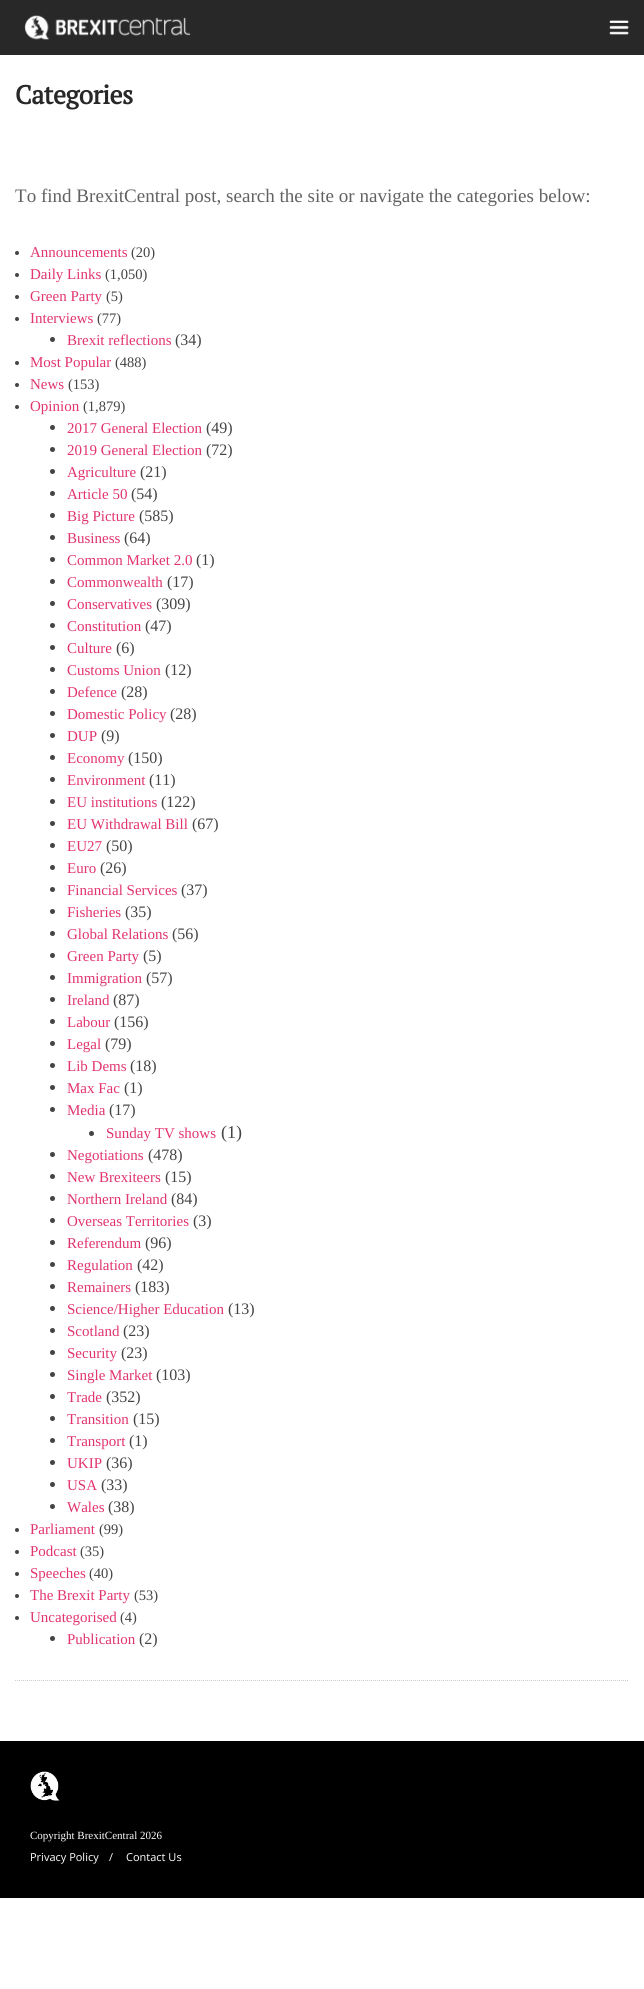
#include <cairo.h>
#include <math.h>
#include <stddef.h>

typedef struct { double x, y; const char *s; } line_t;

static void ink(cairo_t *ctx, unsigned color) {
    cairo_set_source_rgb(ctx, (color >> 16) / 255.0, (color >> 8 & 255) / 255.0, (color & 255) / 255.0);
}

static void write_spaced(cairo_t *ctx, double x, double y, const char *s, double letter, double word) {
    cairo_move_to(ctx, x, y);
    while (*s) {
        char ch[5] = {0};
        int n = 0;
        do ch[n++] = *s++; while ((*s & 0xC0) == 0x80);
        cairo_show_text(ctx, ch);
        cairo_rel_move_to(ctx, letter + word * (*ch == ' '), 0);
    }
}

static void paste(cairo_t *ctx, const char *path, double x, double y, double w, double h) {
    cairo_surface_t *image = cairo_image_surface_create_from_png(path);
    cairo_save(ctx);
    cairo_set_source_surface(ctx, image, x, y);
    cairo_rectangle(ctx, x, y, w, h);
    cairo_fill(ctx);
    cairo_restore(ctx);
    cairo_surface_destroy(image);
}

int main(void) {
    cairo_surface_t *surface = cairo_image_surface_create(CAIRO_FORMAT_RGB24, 644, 1989);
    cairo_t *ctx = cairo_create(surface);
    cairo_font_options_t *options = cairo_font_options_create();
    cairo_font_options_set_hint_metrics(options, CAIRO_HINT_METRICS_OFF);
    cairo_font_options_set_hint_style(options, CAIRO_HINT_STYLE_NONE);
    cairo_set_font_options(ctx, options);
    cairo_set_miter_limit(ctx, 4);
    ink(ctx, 0xFFFFFF);
    cairo_paint(ctx);
    ink(ctx, 0x282828);
    cairo_rectangle(ctx, 0, 0, 644, 55);
    cairo_fill(ctx);
    paste(ctx, "media/1.png", 24, 15, 167, 25);
    paste(ctx, "media/2.png", 609, 20, 20, 15);
    cairo_select_font_face(ctx, "PT Serif", CAIRO_FONT_SLANT_NORMAL, CAIRO_FONT_WEIGHT_BOLD);
    cairo_set_font_size(ctx, 26);
    write_spaced(ctx, 15, 104, "Categories", -0.5, 0);
    cairo_select_font_face(ctx, "Liberation Serif", CAIRO_FONT_SLANT_NORMAL, CAIRO_FONT_WEIGHT_NORMAL);
    cairo_set_font_size(ctx, 19.05);
    ink(ctx, 0x626262);
    cairo_move_to(ctx, 15, 202);
    cairo_show_text(ctx, "To find BrexitCentral post, search the site or navigate the categories below:");
    ink(ctx, 0x444444);
    cairo_new_path(ctx);
    cairo_arc(ctx, 17, 253, 2, 0, 2 * M_PI);
    cairo_fill(ctx);
    cairo_set_font_size(ctx, 15);
    ink(ctx, 0xE1346E);
    cairo_move_to(ctx, 30, 257);
    cairo_show_text(ctx, "Announcements");
    cairo_set_font_size(ctx, 14.5);
    ink(ctx, 0x444444);
    cairo_move_to(ctx, 131, 257);
    cairo_show_text(ctx, "(20)");
    cairo_new_path(ctx);
    cairo_arc(ctx, 17, 275, 2, 0, 2 * M_PI);
    cairo_fill(ctx);
    cairo_set_font_size(ctx, 15);
    ink(ctx, 0xE1346E);
    cairo_move_to(ctx, 30, 279);
    cairo_show_text(ctx, "Daily Links");
    cairo_set_font_size(ctx, 14.5);
    ink(ctx, 0x444444);
    cairo_move_to(ctx, 105, 279);
    cairo_show_text(ctx, "(1,050)");
    cairo_new_path(ctx);
    cairo_arc(ctx, 17, 297, 2, 0, 2 * M_PI);
    cairo_fill(ctx);
    cairo_set_font_size(ctx, 15);
    ink(ctx, 0xE1346E);
    cairo_move_to(ctx, 30, 301);
    cairo_show_text(ctx, "Green Party");
    cairo_set_font_size(ctx, 14.5);
    ink(ctx, 0x444444);
    cairo_move_to(ctx, 106, 301);
    cairo_show_text(ctx, "(5)");
    cairo_new_path(ctx);
    cairo_arc(ctx, 17, 319, 2, 0, 2 * M_PI);
    cairo_fill(ctx);
    cairo_set_font_size(ctx, 15);
    ink(ctx, 0xE1346E);
    cairo_move_to(ctx, 30, 323);
    cairo_show_text(ctx, "Interviews");
    cairo_set_font_size(ctx, 14.5);
    ink(ctx, 0x444444);
    cairo_move_to(ctx, 97, 323);
    cairo_show_text(ctx, "(77)");
    cairo_new_path(ctx);
    cairo_arc(ctx, 52.5, 339.5, 2.5, 0, 2 * M_PI);
    cairo_fill(ctx);
    cairo_set_font_size(ctx, 15);
    ink(ctx, 0xE1346E);
    cairo_move_to(ctx, 67, 345);
    cairo_show_text(ctx, "Brexit reflections");
    cairo_set_font_size(ctx, 16);
    ink(ctx, 0x444444);
    cairo_move_to(ctx, 175, 345);
    cairo_show_text(ctx, "(34)");
    cairo_new_path(ctx);
    cairo_arc(ctx, 17, 363, 2, 0, 2 * M_PI);
    cairo_fill(ctx);
    cairo_set_font_size(ctx, 15);
    ink(ctx, 0xE1346E);
    cairo_move_to(ctx, 30, 367);
    cairo_show_text(ctx, "Most Popular");
    cairo_set_font_size(ctx, 14.5);
    ink(ctx, 0x444444);
    cairo_move_to(ctx, 115, 367);
    cairo_show_text(ctx, "(488)");
    cairo_new_path(ctx);
    cairo_arc(ctx, 17, 385, 2, 0, 2 * M_PI);
    cairo_fill(ctx);
    cairo_set_font_size(ctx, 15);
    ink(ctx, 0xE1346E);
    cairo_move_to(ctx, 30, 389);
    cairo_show_text(ctx, "News");
    cairo_set_font_size(ctx, 14.5);
    ink(ctx, 0x444444);
    cairo_move_to(ctx, 68, 389);
    cairo_show_text(ctx, "(153)");
    cairo_new_path(ctx);
    cairo_arc(ctx, 17, 407, 2, 0, 2 * M_PI);
    cairo_fill(ctx);
    cairo_set_font_size(ctx, 15);
    ink(ctx, 0xE1346E);
    cairo_move_to(ctx, 30, 411);
    cairo_show_text(ctx, "Opinion");
    cairo_set_font_size(ctx, 14.5);
    ink(ctx, 0x444444);
    cairo_move_to(ctx, 83, 411);
    cairo_show_text(ctx, "(1,879)");
    cairo_new_path(ctx);
    cairo_arc(ctx, 52.5, 427.5, 2.5, 0, 2 * M_PI);
    cairo_fill(ctx);
    cairo_set_font_size(ctx, 15);
    ink(ctx, 0xE1346E);
    cairo_move_to(ctx, 67, 433);
    cairo_show_text(ctx, "2017 General Election");
    cairo_set_font_size(ctx, 16);
    ink(ctx, 0x444444);
    cairo_move_to(ctx, 206, 433);
    cairo_show_text(ctx, "(49)");
    cairo_new_path(ctx);
    cairo_arc(ctx, 52.5, 449.5, 2.5, 0, 2 * M_PI);
    cairo_fill(ctx);
    cairo_set_font_size(ctx, 15);
    ink(ctx, 0xE1346E);
    cairo_move_to(ctx, 67, 455);
    cairo_show_text(ctx, "2019 General Election");
    cairo_set_font_size(ctx, 16);
    ink(ctx, 0x444444);
    cairo_move_to(ctx, 206, 455);
    cairo_show_text(ctx, "(72)");
    cairo_new_path(ctx);
    cairo_arc(ctx, 52.5, 471.5, 2.5, 0, 2 * M_PI);
    cairo_fill(ctx);
    cairo_set_font_size(ctx, 15);
    ink(ctx, 0xE1346E);
    cairo_move_to(ctx, 67, 477);
    cairo_show_text(ctx, "Agriculture");
    cairo_set_font_size(ctx, 16);
    ink(ctx, 0x444444);
    cairo_move_to(ctx, 140, 477);
    cairo_show_text(ctx, "(21)");
    cairo_new_path(ctx);
    cairo_arc(ctx, 52.5, 493.5, 2.5, 0, 2 * M_PI);
    cairo_fill(ctx);
    cairo_set_font_size(ctx, 15);
    ink(ctx, 0xE1346E);
    cairo_move_to(ctx, 67, 499);
    cairo_show_text(ctx, "Article 50");
    cairo_set_font_size(ctx, 16);
    ink(ctx, 0x444444);
    cairo_move_to(ctx, 131, 499);
    cairo_show_text(ctx, "(54)");
    cairo_new_path(ctx);
    cairo_arc(ctx, 52.5, 515.5, 2.5, 0, 2 * M_PI);
    cairo_fill(ctx);
    cairo_set_font_size(ctx, 15);
    ink(ctx, 0xE1346E);
    cairo_move_to(ctx, 67, 521);
    cairo_show_text(ctx, "Big Picture");
    cairo_set_font_size(ctx, 16);
    ink(ctx, 0x444444);
    cairo_move_to(ctx, 139, 521);
    cairo_show_text(ctx, "(585)");
    cairo_new_path(ctx);
    cairo_arc(ctx, 52.5, 537.5, 2.5, 0, 2 * M_PI);
    cairo_fill(ctx);
    cairo_set_font_size(ctx, 15);
    ink(ctx, 0xE1346E);
    cairo_move_to(ctx, 67, 543);
    cairo_show_text(ctx, "Business");
    cairo_set_font_size(ctx, 16);
    ink(ctx, 0x444444);
    cairo_move_to(ctx, 124, 543);
    cairo_show_text(ctx, "(64)");
    cairo_new_path(ctx);
    cairo_arc(ctx, 52.5, 559.5, 2.5, 0, 2 * M_PI);
    cairo_fill(ctx);
    cairo_set_font_size(ctx, 15);
    ink(ctx, 0xE1346E);
    cairo_move_to(ctx, 67, 565);
    cairo_show_text(ctx, "Common Market 2.0");
    cairo_set_font_size(ctx, 16);
    ink(ctx, 0x444444);
    cairo_move_to(ctx, 196, 565);
    cairo_show_text(ctx, "(1)");
    cairo_new_path(ctx);
    cairo_arc(ctx, 52.5, 581.5, 2.5, 0, 2 * M_PI);
    cairo_fill(ctx);
    cairo_set_font_size(ctx, 15);
    ink(ctx, 0xE1346E);
    cairo_move_to(ctx, 67, 587);
    cairo_show_text(ctx, "Commonwealth");
    cairo_set_font_size(ctx, 16);
    ink(ctx, 0x444444);
    cairo_move_to(ctx, 167, 587);
    cairo_show_text(ctx, "(17)");
    cairo_new_path(ctx);
    cairo_arc(ctx, 52.5, 603.5, 2.5, 0, 2 * M_PI);
    cairo_fill(ctx);
    cairo_set_font_size(ctx, 15);
    ink(ctx, 0xE1346E);
    cairo_move_to(ctx, 67, 609);
    cairo_show_text(ctx, "Conservatives");
    cairo_set_font_size(ctx, 16);
    ink(ctx, 0x444444);
    cairo_move_to(ctx, 156, 609);
    cairo_show_text(ctx, "(309)");
    cairo_new_path(ctx);
    cairo_arc(ctx, 52.5, 625.5, 2.5, 0, 2 * M_PI);
    cairo_fill(ctx);
    cairo_set_font_size(ctx, 15);
    ink(ctx, 0xE1346E);
    cairo_move_to(ctx, 67, 631);
    cairo_show_text(ctx, "Constitution");
    cairo_set_font_size(ctx, 16);
    ink(ctx, 0x444444);
    cairo_move_to(ctx, 145, 631);
    cairo_show_text(ctx, "(47)");
    cairo_new_path(ctx);
    cairo_arc(ctx, 52.5, 647.5, 2.5, 0, 2 * M_PI);
    cairo_fill(ctx);
    cairo_set_font_size(ctx, 15);
    ink(ctx, 0xE1346E);
    cairo_move_to(ctx, 67, 653);
    cairo_show_text(ctx, "Culture");
    cairo_set_font_size(ctx, 16);
    ink(ctx, 0x444444);
    cairo_move_to(ctx, 116, 653);
    cairo_show_text(ctx, "(6)");
    cairo_new_path(ctx);
    cairo_arc(ctx, 52.5, 669.5, 2.5, 0, 2 * M_PI);
    cairo_fill(ctx);
    cairo_set_font_size(ctx, 15);
    ink(ctx, 0xE1346E);
    cairo_move_to(ctx, 67, 675);
    cairo_show_text(ctx, "Customs Union");
    cairo_set_font_size(ctx, 16);
    ink(ctx, 0x444444);
    cairo_move_to(ctx, 165, 675);
    cairo_show_text(ctx, "(12)");
    cairo_new_path(ctx);
    cairo_arc(ctx, 52.5, 691.5, 2.5, 0, 2 * M_PI);
    cairo_fill(ctx);
    cairo_set_font_size(ctx, 15);
    ink(ctx, 0xE1346E);
    cairo_move_to(ctx, 67, 697);
    cairo_show_text(ctx, "Defence");
    cairo_set_font_size(ctx, 16);
    ink(ctx, 0x444444);
    cairo_move_to(ctx, 121, 697);
    cairo_show_text(ctx, "(28)");
    cairo_new_path(ctx);
    cairo_arc(ctx, 52.5, 713.5, 2.5, 0, 2 * M_PI);
    cairo_fill(ctx);
    cairo_set_font_size(ctx, 15);
    ink(ctx, 0xE1346E);
    cairo_move_to(ctx, 67, 719);
    cairo_show_text(ctx, "Domestic Policy");
    cairo_set_font_size(ctx, 16);
    ink(ctx, 0x444444);
    cairo_move_to(ctx, 170, 719);
    cairo_show_text(ctx, "(28)");
    cairo_new_path(ctx);
    cairo_arc(ctx, 52.5, 735.5, 2.5, 0, 2 * M_PI);
    cairo_fill(ctx);
    cairo_set_font_size(ctx, 15);
    ink(ctx, 0xE1346E);
    cairo_move_to(ctx, 67, 741);
    cairo_show_text(ctx, "DUP");
    cairo_set_font_size(ctx, 16);
    ink(ctx, 0x444444);
    cairo_move_to(ctx, 101, 741);
    cairo_show_text(ctx, "(9)");
    cairo_new_path(ctx);
    cairo_arc(ctx, 52.5, 757.5, 2.5, 0, 2 * M_PI);
    cairo_fill(ctx);
    cairo_set_font_size(ctx, 15);
    ink(ctx, 0xE1346E);
    cairo_move_to(ctx, 67, 763);
    cairo_show_text(ctx, "Economy");
    cairo_set_font_size(ctx, 16);
    ink(ctx, 0x444444);
    cairo_move_to(ctx, 128, 763);
    cairo_show_text(ctx, "(150)");
    cairo_new_path(ctx);
    cairo_arc(ctx, 52.5, 779.5, 2.5, 0, 2 * M_PI);
    cairo_fill(ctx);
    cairo_set_font_size(ctx, 15);
    ink(ctx, 0xE1346E);
    cairo_move_to(ctx, 67, 785);
    cairo_show_text(ctx, "Environment");
    cairo_set_font_size(ctx, 16);
    ink(ctx, 0x444444);
    cairo_move_to(ctx, 149, 785);
    cairo_show_text(ctx, "(11)");
    cairo_new_path(ctx);
    cairo_arc(ctx, 52.5, 801.5, 2.5, 0, 2 * M_PI);
    cairo_fill(ctx);
    cairo_set_font_size(ctx, 15);
    ink(ctx, 0xE1346E);
    cairo_move_to(ctx, 67, 807);
    cairo_show_text(ctx, "EU institutions");
    cairo_set_font_size(ctx, 16);
    ink(ctx, 0x444444);
    cairo_move_to(ctx, 161, 807);
    cairo_show_text(ctx, "(122)");
    cairo_new_path(ctx);
    cairo_arc(ctx, 52.5, 823.5, 2.5, 0, 2 * M_PI);
    cairo_fill(ctx);
    cairo_set_font_size(ctx, 15);
    ink(ctx, 0xE1346E);
    cairo_move_to(ctx, 67, 829);
    cairo_show_text(ctx, "EU Withdrawal Bill");
    cairo_set_font_size(ctx, 16);
    ink(ctx, 0x444444);
    cairo_move_to(ctx, 192, 829);
    cairo_show_text(ctx, "(67)");
    cairo_new_path(ctx);
    cairo_arc(ctx, 52.5, 845.5, 2.5, 0, 2 * M_PI);
    cairo_fill(ctx);
    cairo_set_font_size(ctx, 15);
    ink(ctx, 0xE1346E);
    cairo_move_to(ctx, 67, 851);
    cairo_show_text(ctx, "EU27");
    cairo_set_font_size(ctx, 16);
    ink(ctx, 0x444444);
    cairo_move_to(ctx, 106, 851);
    cairo_show_text(ctx, "(50)");
    cairo_new_path(ctx);
    cairo_arc(ctx, 52.5, 867.5, 2.5, 0, 2 * M_PI);
    cairo_fill(ctx);
    cairo_set_font_size(ctx, 15);
    ink(ctx, 0xE1346E);
    cairo_move_to(ctx, 67, 873);
    cairo_show_text(ctx, "Euro");
    cairo_set_font_size(ctx, 16);
    ink(ctx, 0x444444);
    cairo_move_to(ctx, 100, 873);
    cairo_show_text(ctx, "(26)");
    cairo_new_path(ctx);
    cairo_arc(ctx, 52.5, 889.5, 2.5, 0, 2 * M_PI);
    cairo_fill(ctx);
    cairo_set_font_size(ctx, 15);
    ink(ctx, 0xE1346E);
    cairo_move_to(ctx, 67, 895);
    cairo_show_text(ctx, "Financial Services");
    cairo_set_font_size(ctx, 16);
    ink(ctx, 0x444444);
    cairo_move_to(ctx, 181, 895);
    cairo_show_text(ctx, "(37)");
    cairo_new_path(ctx);
    cairo_arc(ctx, 52.5, 911.5, 2.5, 0, 2 * M_PI);
    cairo_fill(ctx);
    cairo_set_font_size(ctx, 15);
    ink(ctx, 0xE1346E);
    cairo_move_to(ctx, 67, 917);
    cairo_show_text(ctx, "Fisheries");
    cairo_set_font_size(ctx, 16);
    ink(ctx, 0x444444);
    cairo_move_to(ctx, 125, 917);
    cairo_show_text(ctx, "(35)");
    cairo_new_path(ctx);
    cairo_arc(ctx, 52.5, 933.5, 2.5, 0, 2 * M_PI);
    cairo_fill(ctx);
    cairo_set_font_size(ctx, 15);
    ink(ctx, 0xE1346E);
    cairo_move_to(ctx, 67, 939);
    cairo_show_text(ctx, "Global Relations");
    cairo_set_font_size(ctx, 16);
    ink(ctx, 0x444444);
    cairo_move_to(ctx, 172, 939);
    cairo_show_text(ctx, "(56)");
    cairo_new_path(ctx);
    cairo_arc(ctx, 52.5, 955.5, 2.5, 0, 2 * M_PI);
    cairo_fill(ctx);
    cairo_set_font_size(ctx, 15);
    ink(ctx, 0xE1346E);
    cairo_move_to(ctx, 67, 961);
    cairo_show_text(ctx, "Green Party");
    cairo_set_font_size(ctx, 16);
    ink(ctx, 0x444444);
    cairo_move_to(ctx, 143, 961);
    cairo_show_text(ctx, "(5)");
    cairo_new_path(ctx);
    cairo_arc(ctx, 52.5, 977.5, 2.5, 0, 2 * M_PI);
    cairo_fill(ctx);
    cairo_set_font_size(ctx, 15);
    ink(ctx, 0xE1346E);
    cairo_move_to(ctx, 67, 983);
    cairo_show_text(ctx, "Immigration");
    cairo_set_font_size(ctx, 16);
    ink(ctx, 0x444444);
    cairo_move_to(ctx, 146, 983);
    cairo_show_text(ctx, "(57)");
    cairo_new_path(ctx);
    cairo_arc(ctx, 52.5, 999.5, 2.5, 0, 2 * M_PI);
    cairo_fill(ctx);
    cairo_set_font_size(ctx, 15);
    ink(ctx, 0xE1346E);
    cairo_move_to(ctx, 67, 1005);
    cairo_show_text(ctx, "Ireland");
    cairo_set_font_size(ctx, 16);
    ink(ctx, 0x444444);
    cairo_move_to(ctx, 113, 1005);
    cairo_show_text(ctx, "(87)");
    cairo_new_path(ctx);
    cairo_arc(ctx, 52.5, 1021.5, 2.5, 0, 2 * M_PI);
    cairo_fill(ctx);
    cairo_set_font_size(ctx, 15);
    ink(ctx, 0xE1346E);
    cairo_move_to(ctx, 67, 1027);
    cairo_show_text(ctx, "Labour");
    cairo_set_font_size(ctx, 16);
    ink(ctx, 0x444444);
    cairo_move_to(ctx, 114, 1027);
    cairo_show_text(ctx, "(156)");
    cairo_new_path(ctx);
    cairo_arc(ctx, 52.5, 1043.5, 2.5, 0, 2 * M_PI);
    cairo_fill(ctx);
    cairo_set_font_size(ctx, 15);
    ink(ctx, 0xE1346E);
    cairo_move_to(ctx, 67, 1049);
    cairo_show_text(ctx, "Legal");
    cairo_set_font_size(ctx, 16);
    ink(ctx, 0x444444);
    cairo_move_to(ctx, 105, 1049);
    cairo_show_text(ctx, "(79)");
    cairo_new_path(ctx);
    cairo_arc(ctx, 52.5, 1065.5, 2.5, 0, 2 * M_PI);
    cairo_fill(ctx);
    cairo_set_font_size(ctx, 15);
    ink(ctx, 0xE1346E);
    cairo_move_to(ctx, 67, 1071);
    cairo_show_text(ctx, "Lib Dems");
    cairo_set_font_size(ctx, 16);
    ink(ctx, 0x444444);
    cairo_move_to(ctx, 130, 1071);
    cairo_show_text(ctx, "(18)");
    cairo_new_path(ctx);
    cairo_arc(ctx, 52.5, 1087.5, 2.5, 0, 2 * M_PI);
    cairo_fill(ctx);
    cairo_set_font_size(ctx, 15);
    ink(ctx, 0xE1346E);
    cairo_move_to(ctx, 67, 1093);
    cairo_show_text(ctx, "Max Fac");
    cairo_set_font_size(ctx, 16);
    ink(ctx, 0x444444);
    cairo_move_to(ctx, 124, 1093);
    cairo_show_text(ctx, "(1)");
    cairo_new_path(ctx);
    cairo_arc(ctx, 52.5, 1109.5, 2.5, 0, 2 * M_PI);
    cairo_fill(ctx);
    cairo_set_font_size(ctx, 15);
    ink(ctx, 0xE1346E);
    cairo_move_to(ctx, 67, 1115);
    cairo_show_text(ctx, "Media");
    cairo_set_font_size(ctx, 16);
    ink(ctx, 0x444444);
    cairo_move_to(ctx, 109, 1115);
    cairo_show_text(ctx, "(17)");
    cairo_new_path(ctx);
    cairo_arc(ctx, 91.5, 1133.5, 2.5, 0, 2 * M_PI);
    cairo_fill(ctx);
    cairo_set_font_size(ctx, 15);
    ink(ctx, 0xE1346E);
    cairo_move_to(ctx, 106, 1138);
    cairo_show_text(ctx, "Sunday TV shows");
    cairo_set_font_size(ctx, 18);
    ink(ctx, 0x444444);
    cairo_move_to(ctx, 221, 1138);
    cairo_show_text(ctx, "(1)");
    cairo_new_path(ctx);
    cairo_arc(ctx, 52.5, 1154.5, 2.5, 0, 2 * M_PI);
    cairo_fill(ctx);
    cairo_set_font_size(ctx, 15);
    ink(ctx, 0xE1346E);
    cairo_move_to(ctx, 67, 1160);
    cairo_show_text(ctx, "Negotiations");
    cairo_set_font_size(ctx, 16);
    ink(ctx, 0x444444);
    cairo_move_to(ctx, 148, 1160);
    cairo_show_text(ctx, "(478)");
    cairo_new_path(ctx);
    cairo_arc(ctx, 52.5, 1176.5, 2.5, 0, 2 * M_PI);
    cairo_fill(ctx);
    cairo_set_font_size(ctx, 15);
    ink(ctx, 0xE1346E);
    cairo_move_to(ctx, 67, 1182);
    cairo_show_text(ctx, "New Brexiteers");
    cairo_set_font_size(ctx, 16);
    ink(ctx, 0x444444);
    cairo_move_to(ctx, 165, 1182);
    cairo_show_text(ctx, "(15)");
    cairo_new_path(ctx);
    cairo_arc(ctx, 52.5, 1198.5, 2.5, 0, 2 * M_PI);
    cairo_fill(ctx);
    cairo_set_font_size(ctx, 15);
    ink(ctx, 0xE1346E);
    cairo_move_to(ctx, 67, 1204);
    cairo_show_text(ctx, "Northern Ireland");
    cairo_set_font_size(ctx, 16);
    ink(ctx, 0x444444);
    cairo_move_to(ctx, 171, 1204);
    cairo_show_text(ctx, "(84)");
    cairo_new_path(ctx);
    cairo_arc(ctx, 52.5, 1220.5, 2.5, 0, 2 * M_PI);
    cairo_fill(ctx);
    cairo_set_font_size(ctx, 15);
    ink(ctx, 0xE1346E);
    cairo_move_to(ctx, 67, 1226);
    cairo_show_text(ctx, "Overseas Territories");
    cairo_set_font_size(ctx, 16);
    ink(ctx, 0x444444);
    cairo_move_to(ctx, 193, 1226);
    cairo_show_text(ctx, "(3)");
    cairo_new_path(ctx);
    cairo_arc(ctx, 52.5, 1242.5, 2.5, 0, 2 * M_PI);
    cairo_fill(ctx);
    cairo_set_font_size(ctx, 15);
    ink(ctx, 0xE1346E);
    cairo_move_to(ctx, 67, 1248);
    cairo_show_text(ctx, "Referendum");
    cairo_set_font_size(ctx, 16);
    ink(ctx, 0x444444);
    cairo_move_to(ctx, 145, 1248);
    cairo_show_text(ctx, "(96)");
    cairo_new_path(ctx);
    cairo_arc(ctx, 52.5, 1264.5, 2.5, 0, 2 * M_PI);
    cairo_fill(ctx);
    cairo_set_font_size(ctx, 15);
    ink(ctx, 0xE1346E);
    cairo_move_to(ctx, 67, 1270);
    cairo_show_text(ctx, "Regulation");
    cairo_set_font_size(ctx, 16);
    ink(ctx, 0x444444);
    cairo_move_to(ctx, 137, 1270);
    cairo_show_text(ctx, "(42)");
    cairo_new_path(ctx);
    cairo_arc(ctx, 52.5, 1286.5, 2.5, 0, 2 * M_PI);
    cairo_fill(ctx);
    cairo_set_font_size(ctx, 15);
    ink(ctx, 0xE1346E);
    cairo_move_to(ctx, 67, 1292);
    cairo_show_text(ctx, "Remainers");
    cairo_set_font_size(ctx, 16);
    ink(ctx, 0x444444);
    cairo_move_to(ctx, 135, 1292);
    cairo_show_text(ctx, "(183)");
    cairo_new_path(ctx);
    cairo_arc(ctx, 52.5, 1308.5, 2.5, 0, 2 * M_PI);
    cairo_fill(ctx);
    cairo_set_font_size(ctx, 15);
    ink(ctx, 0xE1346E);
    cairo_move_to(ctx, 67, 1314);
    cairo_show_text(ctx, "Science/Higher Education");
    cairo_set_font_size(ctx, 16);
    ink(ctx, 0x444444);
    cairo_move_to(ctx, 228, 1314);
    cairo_show_text(ctx, "(13)");
    cairo_new_path(ctx);
    cairo_arc(ctx, 52.5, 1330.5, 2.5, 0, 2 * M_PI);
    cairo_fill(ctx);
    cairo_set_font_size(ctx, 15);
    ink(ctx, 0xE1346E);
    cairo_move_to(ctx, 67, 1336);
    cairo_show_text(ctx, "Scotland");
    cairo_set_font_size(ctx, 16);
    ink(ctx, 0x444444);
    cairo_move_to(ctx, 123, 1336);
    cairo_show_text(ctx, "(23)");
    cairo_new_path(ctx);
    cairo_arc(ctx, 52.5, 1352.5, 2.5, 0, 2 * M_PI);
    cairo_fill(ctx);
    cairo_set_font_size(ctx, 15);
    ink(ctx, 0xE1346E);
    cairo_move_to(ctx, 67, 1358);
    cairo_show_text(ctx, "Security");
    cairo_set_font_size(ctx, 16);
    ink(ctx, 0x444444);
    cairo_move_to(ctx, 121, 1358);
    cairo_show_text(ctx, "(23)");
    cairo_new_path(ctx);
    cairo_arc(ctx, 52.5, 1374.5, 2.5, 0, 2 * M_PI);
    cairo_fill(ctx);
    cairo_set_font_size(ctx, 15);
    ink(ctx, 0xE1346E);
    cairo_move_to(ctx, 67, 1380);
    cairo_show_text(ctx, "Single Market");
    cairo_set_font_size(ctx, 16);
    ink(ctx, 0x444444);
    cairo_move_to(ctx, 156, 1380);
    cairo_show_text(ctx, "(103)");
    cairo_new_path(ctx);
    cairo_arc(ctx, 52.5, 1396.5, 2.5, 0, 2 * M_PI);
    cairo_fill(ctx);
    cairo_set_font_size(ctx, 15);
    ink(ctx, 0xE1346E);
    cairo_move_to(ctx, 67, 1402);
    cairo_show_text(ctx, "Trade");
    cairo_set_font_size(ctx, 16);
    ink(ctx, 0x444444);
    cairo_move_to(ctx, 106, 1402);
    cairo_show_text(ctx, "(352)");
    cairo_new_path(ctx);
    cairo_arc(ctx, 52.5, 1418.5, 2.5, 0, 2 * M_PI);
    cairo_fill(ctx);
    cairo_set_font_size(ctx, 15);
    ink(ctx, 0xE1346E);
    cairo_move_to(ctx, 67, 1424);
    cairo_show_text(ctx, "Transition");
    cairo_set_font_size(ctx, 16);
    ink(ctx, 0x444444);
    cairo_move_to(ctx, 133, 1424);
    cairo_show_text(ctx, "(15)");
    cairo_new_path(ctx);
    cairo_arc(ctx, 52.5, 1440.5, 2.5, 0, 2 * M_PI);
    cairo_fill(ctx);
    cairo_set_font_size(ctx, 15);
    ink(ctx, 0xE1346E);
    cairo_move_to(ctx, 67, 1446);
    cairo_show_text(ctx, "Transport");
    cairo_set_font_size(ctx, 16);
    ink(ctx, 0x444444);
    cairo_move_to(ctx, 129, 1446);
    cairo_show_text(ctx, "(1)");
    cairo_new_path(ctx);
    cairo_arc(ctx, 52.5, 1462.5, 2.5, 0, 2 * M_PI);
    cairo_fill(ctx);
    cairo_set_font_size(ctx, 15);
    ink(ctx, 0xE1346E);
    cairo_move_to(ctx, 67, 1468);
    cairo_show_text(ctx, "UKIP");
    cairo_set_font_size(ctx, 16);
    ink(ctx, 0x444444);
    cairo_move_to(ctx, 106, 1468);
    cairo_show_text(ctx, "(36)");
    cairo_new_path(ctx);
    cairo_arc(ctx, 52.5, 1484.5, 2.5, 0, 2 * M_PI);
    cairo_fill(ctx);
    cairo_set_font_size(ctx, 15);
    ink(ctx, 0xE1346E);
    cairo_move_to(ctx, 67, 1490);
    cairo_show_text(ctx, "USA");
    cairo_set_font_size(ctx, 16);
    ink(ctx, 0x444444);
    cairo_move_to(ctx, 101, 1490);
    cairo_show_text(ctx, "(33)");
    cairo_new_path(ctx);
    cairo_arc(ctx, 52.5, 1506.5, 2.5, 0, 2 * M_PI);
    cairo_fill(ctx);
    cairo_set_font_size(ctx, 15);
    ink(ctx, 0xE1346E);
    cairo_move_to(ctx, 67, 1512);
    cairo_show_text(ctx, "Wales");
    cairo_set_font_size(ctx, 16);
    ink(ctx, 0x444444);
    cairo_move_to(ctx, 108, 1512);
    cairo_show_text(ctx, "(38)");
    cairo_new_path(ctx);
    cairo_arc(ctx, 17, 1530, 2, 0, 2 * M_PI);
    cairo_fill(ctx);
    cairo_set_font_size(ctx, 15);
    ink(ctx, 0xE1346E);
    cairo_move_to(ctx, 30, 1534);
    cairo_show_text(ctx, "Parliament");
    cairo_set_font_size(ctx, 14.5);
    ink(ctx, 0x444444);
    cairo_move_to(ctx, 99, 1534);
    cairo_show_text(ctx, "(99)");
    cairo_new_path(ctx);
    cairo_arc(ctx, 17, 1552, 2, 0, 2 * M_PI);
    cairo_fill(ctx);
    cairo_set_font_size(ctx, 15);
    ink(ctx, 0xE1346E);
    cairo_move_to(ctx, 30, 1556);
    cairo_show_text(ctx, "Podcast");
    cairo_set_font_size(ctx, 14.5);
    ink(ctx, 0x444444);
    cairo_move_to(ctx, 80, 1556);
    cairo_show_text(ctx, "(35)");
    cairo_new_path(ctx);
    cairo_arc(ctx, 17, 1574, 2, 0, 2 * M_PI);
    cairo_fill(ctx);
    cairo_set_font_size(ctx, 15);
    ink(ctx, 0xE1346E);
    cairo_move_to(ctx, 30, 1578);
    cairo_show_text(ctx, "Speeches");
    cairo_set_font_size(ctx, 14.5);
    ink(ctx, 0x444444);
    cairo_move_to(ctx, 89, 1578);
    cairo_show_text(ctx, "(40)");
    cairo_new_path(ctx);
    cairo_arc(ctx, 17, 1596, 2, 0, 2 * M_PI);
    cairo_fill(ctx);
    cairo_set_font_size(ctx, 15);
    ink(ctx, 0xE1346E);
    cairo_move_to(ctx, 30, 1600);
    cairo_show_text(ctx, "The Brexit Party");
    cairo_set_font_size(ctx, 14.5);
    ink(ctx, 0x444444);
    cairo_move_to(ctx, 134, 1600);
    cairo_show_text(ctx, "(53)");
    cairo_new_path(ctx);
    cairo_arc(ctx, 17, 1618, 2, 0, 2 * M_PI);
    cairo_fill(ctx);
    cairo_set_font_size(ctx, 15);
    ink(ctx, 0xE1346E);
    cairo_move_to(ctx, 30, 1622);
    cairo_show_text(ctx, "Uncategorised");
    cairo_set_font_size(ctx, 14.5);
    ink(ctx, 0x444444);
    cairo_move_to(ctx, 120, 1622);
    cairo_show_text(ctx, "(4)");
    cairo_new_path(ctx);
    cairo_arc(ctx, 52.5, 1638.5, 2.5, 0, 2 * M_PI);
    cairo_fill(ctx);
    cairo_set_font_size(ctx, 15);
    ink(ctx, 0xE1346E);
    cairo_move_to(ctx, 67, 1644);
    cairo_show_text(ctx, "Publication");
    cairo_set_font_size(ctx, 16);
    ink(ctx, 0x444444);
    cairo_move_to(ctx, 139, 1644);
    cairo_show_text(ctx, "(2)");
    cairo_new_path(ctx);
    cairo_move_to(ctx, 15, 1680.5);
    cairo_line_to(ctx, 629, 1680.5);
    ink(ctx, 0xCCCCCC);
    cairo_set_line_width(ctx, 1);
    cairo_set_dash(ctx, (double[]){1, 1}, 2, 0);
    cairo_stroke(ctx);
    ink(ctx, 0x000000);
    cairo_rectangle(ctx, 0, 1741, 644, 157);
    cairo_fill(ctx);
    paste(ctx, "media/3.png", 30, 1771, 30, 30);
    cairo_set_font_size(ctx, 11);
    ink(ctx, 0xFFFFFF);
    cairo_move_to(ctx, 30, 1839);
    cairo_show_text(ctx, "Copyright BrexitCentral 2026");
    cairo_select_font_face(ctx, "Open Sans", CAIRO_FONT_SLANT_NORMAL, CAIRO_FONT_WEIGHT_NORMAL);
    {
        static const line_t items[] = {
            {30, 1861, "Privacy Policy"},
            {109, 1861, "/"},
            {126, 1861, "Contact Us"},
        };
        for (size_t i = 0; i < sizeof items / sizeof *items; i++) {
            cairo_move_to(ctx, items[i].x, items[i].y);
            cairo_show_text(ctx, items[i].s);
        }
    }
    cairo_surface_write_to_png(surface, "image.png");
    cairo_font_options_destroy(options);
    cairo_destroy(ctx);
    cairo_surface_destroy(surface);
    return 0;
}
